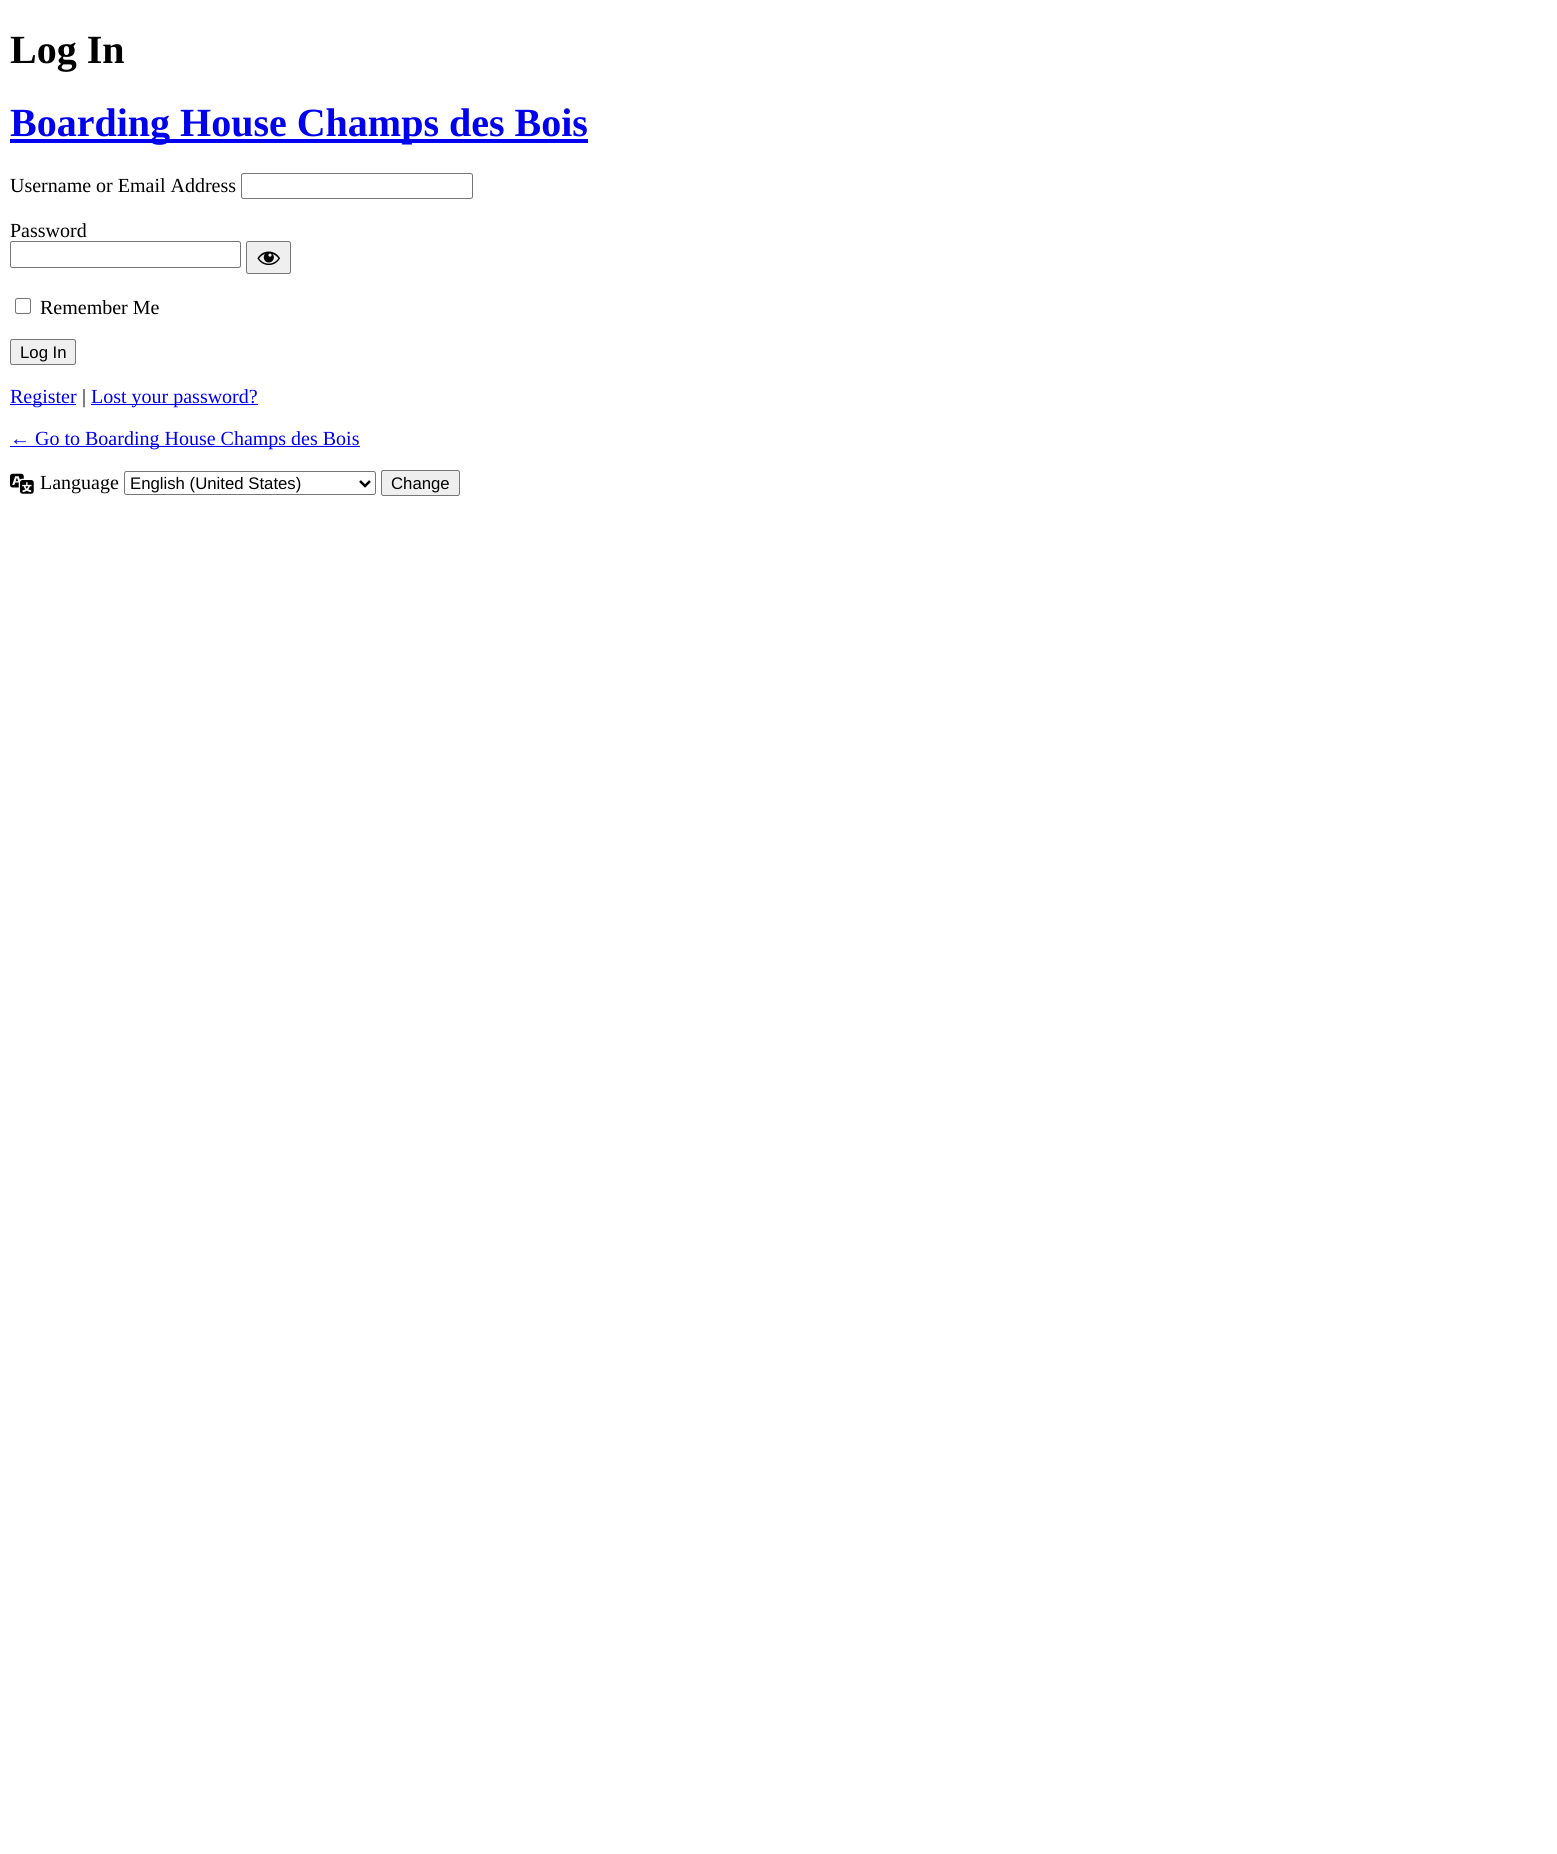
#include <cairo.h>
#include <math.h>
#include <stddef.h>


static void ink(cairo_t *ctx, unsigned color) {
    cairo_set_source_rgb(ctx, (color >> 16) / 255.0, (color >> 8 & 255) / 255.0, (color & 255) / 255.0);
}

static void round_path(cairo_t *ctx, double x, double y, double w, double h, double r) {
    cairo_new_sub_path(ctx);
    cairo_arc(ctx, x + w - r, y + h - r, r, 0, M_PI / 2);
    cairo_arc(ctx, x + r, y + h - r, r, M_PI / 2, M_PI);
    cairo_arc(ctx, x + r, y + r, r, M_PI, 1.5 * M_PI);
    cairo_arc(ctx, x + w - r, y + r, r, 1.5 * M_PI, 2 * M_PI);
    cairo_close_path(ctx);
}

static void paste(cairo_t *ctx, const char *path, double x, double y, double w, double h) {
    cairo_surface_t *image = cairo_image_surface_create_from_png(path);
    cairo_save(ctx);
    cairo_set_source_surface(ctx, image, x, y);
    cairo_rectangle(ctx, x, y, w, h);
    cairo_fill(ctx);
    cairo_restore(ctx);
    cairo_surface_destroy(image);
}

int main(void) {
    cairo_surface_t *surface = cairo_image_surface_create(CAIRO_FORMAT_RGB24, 1557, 1854);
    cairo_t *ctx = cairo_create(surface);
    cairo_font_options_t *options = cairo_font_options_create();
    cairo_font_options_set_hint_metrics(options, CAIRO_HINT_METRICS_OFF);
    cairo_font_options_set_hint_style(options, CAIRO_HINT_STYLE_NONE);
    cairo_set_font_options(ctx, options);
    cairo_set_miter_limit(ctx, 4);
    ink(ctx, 0xFFFFFF);
    cairo_paint(ctx);
    cairo_select_font_face(ctx, "Liberation Serif", CAIRO_FONT_SLANT_NORMAL, CAIRO_FONT_WEIGHT_BOLD);
    cairo_set_font_size(ctx, 40);
    ink(ctx, 0x000000);
    cairo_move_to(ctx, 10, 63);
    cairo_show_text(ctx, "Log In");
    ink(ctx, 0x0000EE);
    cairo_rectangle(ctx, 10, 139, 578, 4);
    cairo_fill(ctx);
    cairo_move_to(ctx, 10, 136);
    cairo_show_text(ctx, "Boarding House Champs des Bois");
    cairo_select_font_face(ctx, "Liberation Serif", CAIRO_FONT_SLANT_NORMAL, CAIRO_FONT_WEIGHT_NORMAL);
    cairo_set_font_size(ctx, 20);
    ink(ctx, 0x000000);
    cairo_move_to(ctx, 10, 192);
    cairo_show_text(ctx, "Username or Email Address");
    round_path(ctx, 241.5, 173.5, 231, 25, 2);
    ink(ctx, 0x767676);
    cairo_set_line_width(ctx, 1);
    cairo_stroke(ctx);
    ink(ctx, 0x000000);
    cairo_move_to(ctx, 10, 237);
    cairo_show_text(ctx, "Password");
    round_path(ctx, 10.5, 241.5, 230, 26, 2);
    ink(ctx, 0x767676);
    cairo_stroke(ctx);
    ink(ctx, 0xEFEFEF);
    round_path(ctx, 246.5, 241.5, 44, 32, 2);
    cairo_fill_preserve(ctx);
    ink(ctx, 0x767676);
    cairo_stroke(ctx);
    paste(ctx, "media/1.png", 257, 251, 24, 15);
    round_path(ctx, 15.5, 298.5, 15, 15, 2);
    cairo_stroke(ctx);
    ink(ctx, 0x000000);
    cairo_move_to(ctx, 40, 314);
    cairo_show_text(ctx, "Remember Me");
    ink(ctx, 0xEFEFEF);
    round_path(ctx, 10.5, 339.5, 65, 25, 2);
    cairo_fill_preserve(ctx);
    ink(ctx, 0x767676);
    cairo_stroke(ctx);
    cairo_select_font_face(ctx, "Liberation Sans", CAIRO_FONT_SLANT_NORMAL, CAIRO_FONT_WEIGHT_NORMAL);
    cairo_set_font_size(ctx, 16.75);
    ink(ctx, 0x000000);
    cairo_move_to(ctx, 20, 358);
    cairo_show_text(ctx, "Log In");
    ink(ctx, 0x0000EE);
    cairo_rectangle(ctx, 10, 404, 66, 1);
    cairo_fill(ctx);
    cairo_select_font_face(ctx, "Liberation Serif", CAIRO_FONT_SLANT_NORMAL, CAIRO_FONT_WEIGHT_NORMAL);
    cairo_set_font_size(ctx, 20);
    cairo_move_to(ctx, 10, 403);
    cairo_show_text(ctx, "Register");
    ink(ctx, 0x000000);
    cairo_move_to(ctx, 82, 403);
    cairo_show_text(ctx, "|");
    ink(ctx, 0x0000EE);
    cairo_rectangle(ctx, 91, 404, 167, 1);
    cairo_fill(ctx);
    cairo_move_to(ctx, 91, 403);
    cairo_show_text(ctx, "Lost your password?");
    cairo_rectangle(ctx, 10, 446, 350, 1);
    cairo_fill(ctx);
    cairo_move_to(ctx, 10, 445);
    cairo_show_text(ctx, "← Go to Boarding House Champs des Bois");
    paste(ctx, "media/2.png", 10, 473, 24, 21);
    ink(ctx, 0x000000);
    cairo_move_to(ctx, 40, 489);
    cairo_show_text(ctx, "Language");
    round_path(ctx, 124.5, 471.5, 251, 23, 2);
    ink(ctx, 0x767676);
    cairo_stroke(ctx);
    cairo_new_path(ctx);
    cairo_move_to(ctx, 360, 481);
    cairo_line_to(ctx, 365, 486);
    cairo_line_to(ctx, 370, 481);
    ink(ctx, 0x000000);
    cairo_set_line_width(ctx, 2.5);
    cairo_stroke(ctx);
    cairo_select_font_face(ctx, "Liberation Sans", CAIRO_FONT_SLANT_NORMAL, CAIRO_FONT_WEIGHT_NORMAL);
    cairo_set_font_size(ctx, 16.75);
    cairo_move_to(ctx, 130, 489);
    cairo_show_text(ctx, "English (United States)");
    ink(ctx, 0xEFEFEF);
    round_path(ctx, 381.5, 470.5, 78, 25, 2);
    cairo_fill_preserve(ctx);
    ink(ctx, 0x767676);
    cairo_set_line_width(ctx, 1);
    cairo_stroke(ctx);
    ink(ctx, 0x000000);
    cairo_move_to(ctx, 391, 489);
    cairo_show_text(ctx, "Change");
    cairo_surface_write_to_png(surface, "image.png");
    cairo_font_options_destroy(options);
    cairo_destroy(ctx);
    cairo_surface_destroy(surface);
    return 0;
}
